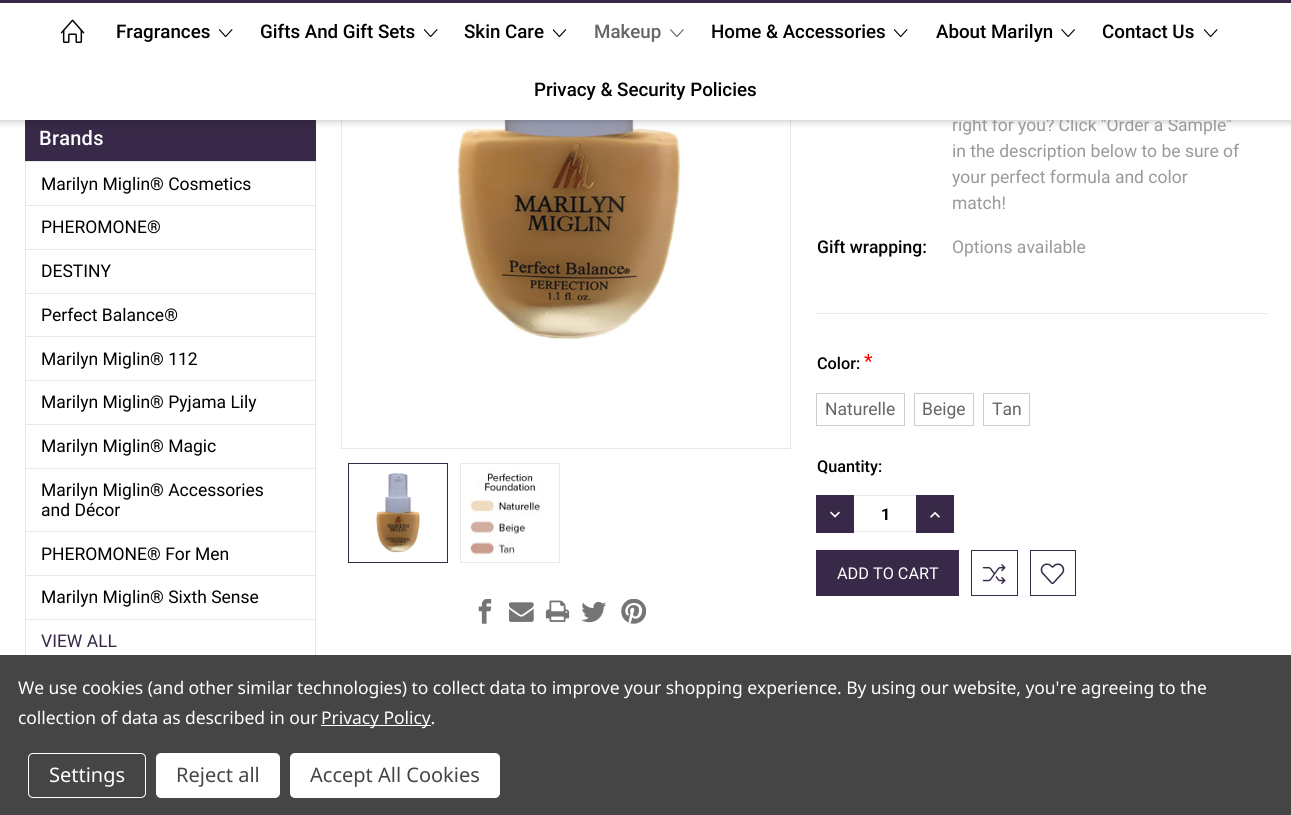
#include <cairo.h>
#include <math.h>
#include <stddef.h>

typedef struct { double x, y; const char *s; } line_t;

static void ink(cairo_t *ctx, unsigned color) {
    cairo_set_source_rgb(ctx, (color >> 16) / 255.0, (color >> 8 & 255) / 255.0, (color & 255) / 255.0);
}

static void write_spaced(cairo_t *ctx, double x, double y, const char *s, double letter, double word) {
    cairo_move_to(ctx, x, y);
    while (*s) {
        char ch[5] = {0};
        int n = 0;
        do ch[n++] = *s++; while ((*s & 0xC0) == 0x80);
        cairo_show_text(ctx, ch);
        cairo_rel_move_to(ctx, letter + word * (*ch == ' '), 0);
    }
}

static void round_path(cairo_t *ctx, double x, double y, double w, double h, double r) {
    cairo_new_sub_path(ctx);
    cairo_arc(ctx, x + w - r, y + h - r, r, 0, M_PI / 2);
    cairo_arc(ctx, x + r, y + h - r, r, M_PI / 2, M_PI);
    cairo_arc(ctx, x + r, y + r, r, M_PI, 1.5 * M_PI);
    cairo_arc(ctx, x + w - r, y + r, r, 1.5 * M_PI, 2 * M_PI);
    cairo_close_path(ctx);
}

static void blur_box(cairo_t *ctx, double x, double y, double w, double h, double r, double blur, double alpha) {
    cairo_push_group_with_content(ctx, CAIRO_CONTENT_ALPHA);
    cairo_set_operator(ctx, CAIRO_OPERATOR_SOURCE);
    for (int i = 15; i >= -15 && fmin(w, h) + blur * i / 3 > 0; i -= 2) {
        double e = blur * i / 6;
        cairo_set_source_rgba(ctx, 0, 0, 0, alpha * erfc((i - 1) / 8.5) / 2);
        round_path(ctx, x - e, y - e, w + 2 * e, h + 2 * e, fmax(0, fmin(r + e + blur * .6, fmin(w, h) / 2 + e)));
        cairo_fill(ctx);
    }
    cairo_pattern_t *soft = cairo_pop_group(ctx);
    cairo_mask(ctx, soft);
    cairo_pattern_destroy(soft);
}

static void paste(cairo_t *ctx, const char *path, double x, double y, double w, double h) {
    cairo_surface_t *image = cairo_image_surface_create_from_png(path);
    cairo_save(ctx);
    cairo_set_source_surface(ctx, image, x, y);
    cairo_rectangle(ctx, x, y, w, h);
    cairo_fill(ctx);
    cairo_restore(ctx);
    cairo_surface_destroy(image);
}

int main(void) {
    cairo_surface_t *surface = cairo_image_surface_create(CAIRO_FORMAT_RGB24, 1291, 815);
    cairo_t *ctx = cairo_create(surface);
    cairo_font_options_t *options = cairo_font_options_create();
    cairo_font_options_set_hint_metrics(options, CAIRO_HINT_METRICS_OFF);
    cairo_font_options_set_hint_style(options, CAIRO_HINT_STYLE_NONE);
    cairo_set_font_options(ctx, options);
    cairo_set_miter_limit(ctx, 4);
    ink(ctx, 0xFFFFFF);
    cairo_paint(ctx);
    ink(ctx, 0x372947);
    cairo_rectangle(ctx, 25, 120, 291, 41);
    cairo_fill(ctx);
    cairo_rectangle(ctx, 341.5, -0.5, 449, 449);
    ink(ctx, 0xE8E8E8);
    cairo_set_line_width(ctx, 1);
    cairo_stroke(ctx);
    paste(ctx, "media/6.png", 456, 120, 228, 220);
    ink(ctx, 0x000000);
    blur_box(ctx, 0, 0, 1291, 120, 0, 4.5, 0.3);
    cairo_select_font_face(ctx, "Roboto", CAIRO_FONT_SLANT_NORMAL, CAIRO_FONT_WEIGHT_NORMAL);
    cairo_set_font_size(ctx, 17.5);
    ink(ctx, 0x999999);
    cairo_move_to(ctx, 952, 131);
    cairo_show_text(ctx, "right for you? Click \"Order a Sample\"");
    ink(ctx, 0xFFFFFF);
    cairo_rectangle(ctx, 0, 3, 1291, 117);
    cairo_fill(ctx);
    ink(ctx, 0x372947);
    cairo_rectangle(ctx, 0, 0, 1291, 3);
    cairo_fill(ctx);
    paste(ctx, "media/1.png", 60, 19, 25, 24);
    cairo_select_font_face(ctx, "Roboto Medium", CAIRO_FONT_SLANT_NORMAL, CAIRO_FONT_WEIGHT_NORMAL);
    cairo_set_font_size(ctx, 18.75);
    ink(ctx, 0x000000);
    cairo_move_to(ctx, 116, 38);
    cairo_show_text(ctx, "Fragrances");
    paste(ctx, "media/2.png", 219, 29, 14, 9);
    cairo_move_to(ctx, 260, 38);
    cairo_show_text(ctx, "Gifts And Gift Sets");
    paste(ctx, "media/2.png", 424, 29, 14, 9);
    cairo_move_to(ctx, 464, 38);
    cairo_show_text(ctx, "Skin Care");
    paste(ctx, "media/3.png", 553, 29, 13, 9);
    ink(ctx, 0x666666);
    cairo_move_to(ctx, 594, 38);
    cairo_show_text(ctx, "Makeup");
    paste(ctx, "media/4.png", 670, 29, 14, 9);
    ink(ctx, 0x000000);
    cairo_move_to(ctx, 711, 38);
    cairo_show_text(ctx, "Home & Accessories");
    paste(ctx, "media/2.png", 894, 29, 14, 9);
    cairo_move_to(ctx, 936, 38);
    cairo_show_text(ctx, "About Marilyn");
    paste(ctx, "media/5.png", 1061, 29, 14, 9);
    cairo_move_to(ctx, 1102, 38);
    cairo_show_text(ctx, "Contact Us");
    paste(ctx, "media/2.png", 1204, 29, 14, 9);
    cairo_move_to(ctx, 534, 96);
    cairo_show_text(ctx, "Privacy & Security Policies");
    cairo_set_font_size(ctx, 20);
    ink(ctx, 0xFFFFFF);
    write_spaced(ctx, 39, 145, "Brands", 0.25, 0);
    cairo_rectangle(ctx, 25.5, 161.5, 290, 502);
    ink(ctx, 0xE8E8E8);
    cairo_stroke(ctx);
    cairo_select_font_face(ctx, "Roboto", CAIRO_FONT_SLANT_NORMAL, CAIRO_FONT_WEIGHT_NORMAL);
    cairo_set_font_size(ctx, 17.5);
    ink(ctx, 0x000000);
    cairo_move_to(ctx, 41, 190);
    cairo_show_text(ctx, "Marilyn Miglin® Cosmetics");
    ink(ctx, 0xE8E8E8);
    cairo_rectangle(ctx, 26, 205, 289, 1);
    cairo_fill(ctx);
    ink(ctx, 0x000000);
    cairo_move_to(ctx, 41, 233);
    cairo_show_text(ctx, "PHEROMONE®");
    ink(ctx, 0xE8E8E8);
    cairo_rectangle(ctx, 26, 249, 289, 1);
    cairo_fill(ctx);
    ink(ctx, 0x000000);
    cairo_move_to(ctx, 41, 277);
    cairo_show_text(ctx, "DESTINY");
    ink(ctx, 0xE8E8E8);
    cairo_rectangle(ctx, 26, 293, 289, 1);
    cairo_fill(ctx);
    ink(ctx, 0x000000);
    cairo_move_to(ctx, 41, 321);
    cairo_show_text(ctx, "Perfect Balance®");
    ink(ctx, 0xE8E8E8);
    cairo_rectangle(ctx, 26, 336, 289, 1);
    cairo_fill(ctx);
    ink(ctx, 0x000000);
    cairo_move_to(ctx, 41, 365);
    cairo_show_text(ctx, "Marilyn Miglin® 112");
    ink(ctx, 0xE8E8E8);
    cairo_rectangle(ctx, 26, 380, 289, 1);
    cairo_fill(ctx);
    ink(ctx, 0x000000);
    cairo_move_to(ctx, 41, 408);
    cairo_show_text(ctx, "Marilyn Miglin® Pyjama Lily");
    ink(ctx, 0xE8E8E8);
    cairo_rectangle(ctx, 26, 424, 289, 1);
    cairo_fill(ctx);
    ink(ctx, 0x000000);
    cairo_move_to(ctx, 41, 452);
    cairo_show_text(ctx, "Marilyn Miglin® Magic");
    ink(ctx, 0xE8E8E8);
    cairo_rectangle(ctx, 26, 468, 289, 1);
    cairo_fill(ctx);
    ink(ctx, 0x000000);
    cairo_move_to(ctx, 41, 496);
    cairo_show_text(ctx, "Marilyn Miglin® Accessories");
    cairo_move_to(ctx, 41, 516);
    cairo_show_text(ctx, "and Décor");
    ink(ctx, 0xE8E8E8);
    cairo_rectangle(ctx, 26, 531, 289, 1);
    cairo_fill(ctx);
    ink(ctx, 0x000000);
    cairo_move_to(ctx, 41, 560);
    cairo_show_text(ctx, "PHEROMONE® For Men");
    ink(ctx, 0xE8E8E8);
    cairo_rectangle(ctx, 26, 575, 289, 1);
    cairo_fill(ctx);
    ink(ctx, 0x000000);
    cairo_move_to(ctx, 41, 603);
    cairo_show_text(ctx, "Marilyn Miglin® Sixth Sense");
    ink(ctx, 0xE8E8E8);
    cairo_rectangle(ctx, 26, 619, 289, 1);
    cairo_fill(ctx);
    ink(ctx, 0x372947);
    cairo_move_to(ctx, 41, 647);
    cairo_show_text(ctx, "VIEW ALL");
    cairo_rectangle(ctx, 348.5, 463.5, 99, 99);
    cairo_stroke(ctx);
    paste(ctx, "media/7.png", 376, 473, 44, 80);
    cairo_rectangle(ctx, 460.5, 463.5, 99, 99);
    ink(ctx, 0xE8E8E8);
    cairo_stroke(ctx);
    paste(ctx, "media/8.png", 470, 469, 72, 88);
    paste(ctx, "media/9.png", 478, 599, 14, 25);
    paste(ctx, "media/10.png", 509, 602, 25, 20);
    paste(ctx, "media/11.png", 545, 600, 25, 22);
    paste(ctx, "media/12.png", 581, 601, 25, 22);
    paste(ctx, "media/13.png", 621, 599, 25, 25);
    cairo_rectangle(ctx, 816, 313, 452, 1);
    cairo_fill(ctx);
    ink(ctx, 0x999999);
    {
        static const line_t items[] = {
            {952, 157, "in the description below to be sure of"},
            {952, 183, "your perfect formula and color"},
            {952, 209, "match!"},
        };
        for (size_t i = 0; i < sizeof items / sizeof *items; i++) {
            cairo_move_to(ctx, items[i].x, items[i].y);
            cairo_show_text(ctx, items[i].s);
        }
    }
    cairo_select_font_face(ctx, "Roboto Medium", CAIRO_FONT_SLANT_NORMAL, CAIRO_FONT_WEIGHT_NORMAL);
    ink(ctx, 0x000000);
    cairo_move_to(ctx, 817, 253);
    cairo_show_text(ctx, "Gift wrapping:");
    cairo_select_font_face(ctx, "Roboto", CAIRO_FONT_SLANT_NORMAL, CAIRO_FONT_WEIGHT_NORMAL);
    ink(ctx, 0x999999);
    cairo_move_to(ctx, 952, 253);
    cairo_show_text(ctx, "Options available");
    cairo_select_font_face(ctx, "Roboto Medium", CAIRO_FONT_SLANT_NORMAL, CAIRO_FONT_WEIGHT_NORMAL);
    cairo_set_font_size(ctx, 16.25);
    ink(ctx, 0x000000);
    cairo_move_to(ctx, 817, 369);
    cairo_show_text(ctx, "Color:");
    cairo_select_font_face(ctx, "Roboto", CAIRO_FONT_SLANT_NORMAL, CAIRO_FONT_WEIGHT_NORMAL);
    cairo_set_font_size(ctx, 20);
    ink(ctx, 0xFF0000);
    cairo_move_to(ctx, 864, 368);
    cairo_show_text(ctx, "*");
    cairo_rectangle(ctx, 816.5, 393.5, 88, 32);
    ink(ctx, 0xCCCCCC);
    cairo_stroke(ctx);
    cairo_set_font_size(ctx, 17.5);
    ink(ctx, 0x666666);
    cairo_move_to(ctx, 825, 415);
    cairo_show_text(ctx, "Naturelle");
    cairo_rectangle(ctx, 914.5, 393.5, 59, 32);
    ink(ctx, 0xCCCCCC);
    cairo_stroke(ctx);
    ink(ctx, 0x666666);
    cairo_move_to(ctx, 922, 415);
    cairo_show_text(ctx, "Beige");
    cairo_rectangle(ctx, 983.5, 393.5, 46, 32);
    ink(ctx, 0xCCCCCC);
    cairo_stroke(ctx);
    ink(ctx, 0x666666);
    cairo_move_to(ctx, 992, 415);
    cairo_show_text(ctx, "Tan");
    cairo_select_font_face(ctx, "Roboto Medium", CAIRO_FONT_SLANT_NORMAL, CAIRO_FONT_WEIGHT_NORMAL);
    cairo_set_font_size(ctx, 16.25);
    ink(ctx, 0x000000);
    cairo_move_to(ctx, 817, 472);
    cairo_show_text(ctx, "Quantity:");
    ink(ctx, 0x372947);
    cairo_rectangle(ctx, 816, 495, 38, 38);
    cairo_fill(ctx);
    paste(ctx, "media/14.png", 830, 511, 10, 7);
    ink(ctx, 0xE8E8E8);
    cairo_rectangle(ctx, 854, 495, 62, 1);
    cairo_fill(ctx);
    cairo_rectangle(ctx, 854, 531, 62, 1);
    cairo_fill(ctx);
    cairo_select_font_face(ctx, "Roboto", CAIRO_FONT_SLANT_NORMAL, CAIRO_FONT_WEIGHT_BOLD);
    ink(ctx, 0x000000);
    cairo_move_to(ctx, 881, 520);
    cairo_show_text(ctx, "1");
    ink(ctx, 0x372947);
    cairo_rectangle(ctx, 916, 495, 38, 38);
    cairo_fill(ctx);
    paste(ctx, "media/15.png", 930, 511, 10, 7);
    cairo_rectangle(ctx, 816, 550, 143, 46);
    cairo_fill(ctx);
    cairo_select_font_face(ctx, "Roboto", CAIRO_FONT_SLANT_NORMAL, CAIRO_FONT_WEIGHT_NORMAL);
    ink(ctx, 0xFFFFFF);
    cairo_move_to(ctx, 837, 579);
    cairo_show_text(ctx, "ADD TO CART");
    cairo_rectangle(ctx, 971.5, 550.5, 46, 45);
    ink(ctx, 0x372947);
    cairo_stroke(ctx);
    paste(ctx, "media/16.png", 982, 564, 24, 20);
    cairo_rectangle(ctx, 1030.5, 550.5, 45, 45);
    cairo_stroke(ctx);
    paste(ctx, "media/17.png", 1040, 563, 25, 21);
    ink(ctx, 0x454545);
    cairo_rectangle(ctx, 0, 655, 1291, 160);
    cairo_fill(ctx);
    cairo_select_font_face(ctx, "Noto Sans", CAIRO_FONT_SLANT_NORMAL, CAIRO_FONT_WEIGHT_NORMAL);
    cairo_set_font_size(ctx, 17.5);
    ink(ctx, 0xFFFFFF);
    write_spaced(ctx, 18, 694, "We use cookies (and other similar technologies) to collect data to improve your shopping experience. By using our website, you're agreeing to the", -0.06, 0);
    write_spaced(ctx, 18, 724, "collection of data as described in our", -0.06, 0);
    cairo_rectangle(ctx, 321, 725, 110, 1);
    cairo_fill(ctx);
    write_spaced(ctx, 321, 724, "Privacy Policy.", -0.06, 0);
    round_path(ctx, 28.5, 753.5, 117, 44, 4.5);
    cairo_stroke(ctx);
    cairo_set_font_size(ctx, 20);
    cairo_move_to(ctx, 49, 782);
    cairo_show_text(ctx, "Settings");
    round_path(ctx, 156, 753, 124, 45, 5);
    cairo_fill(ctx);
    ink(ctx, 0x454545);
    cairo_move_to(ctx, 176, 782);
    cairo_show_text(ctx, "Reject all");
    ink(ctx, 0xFFFFFF);
    round_path(ctx, 290, 753, 210, 45, 5);
    cairo_fill(ctx);
    ink(ctx, 0x454545);
    cairo_move_to(ctx, 310, 782);
    cairo_show_text(ctx, "Accept All Cookies");
    cairo_surface_write_to_png(surface, "image.png");
    cairo_font_options_destroy(options);
    cairo_destroy(ctx);
    cairo_surface_destroy(surface);
    return 0;
}
